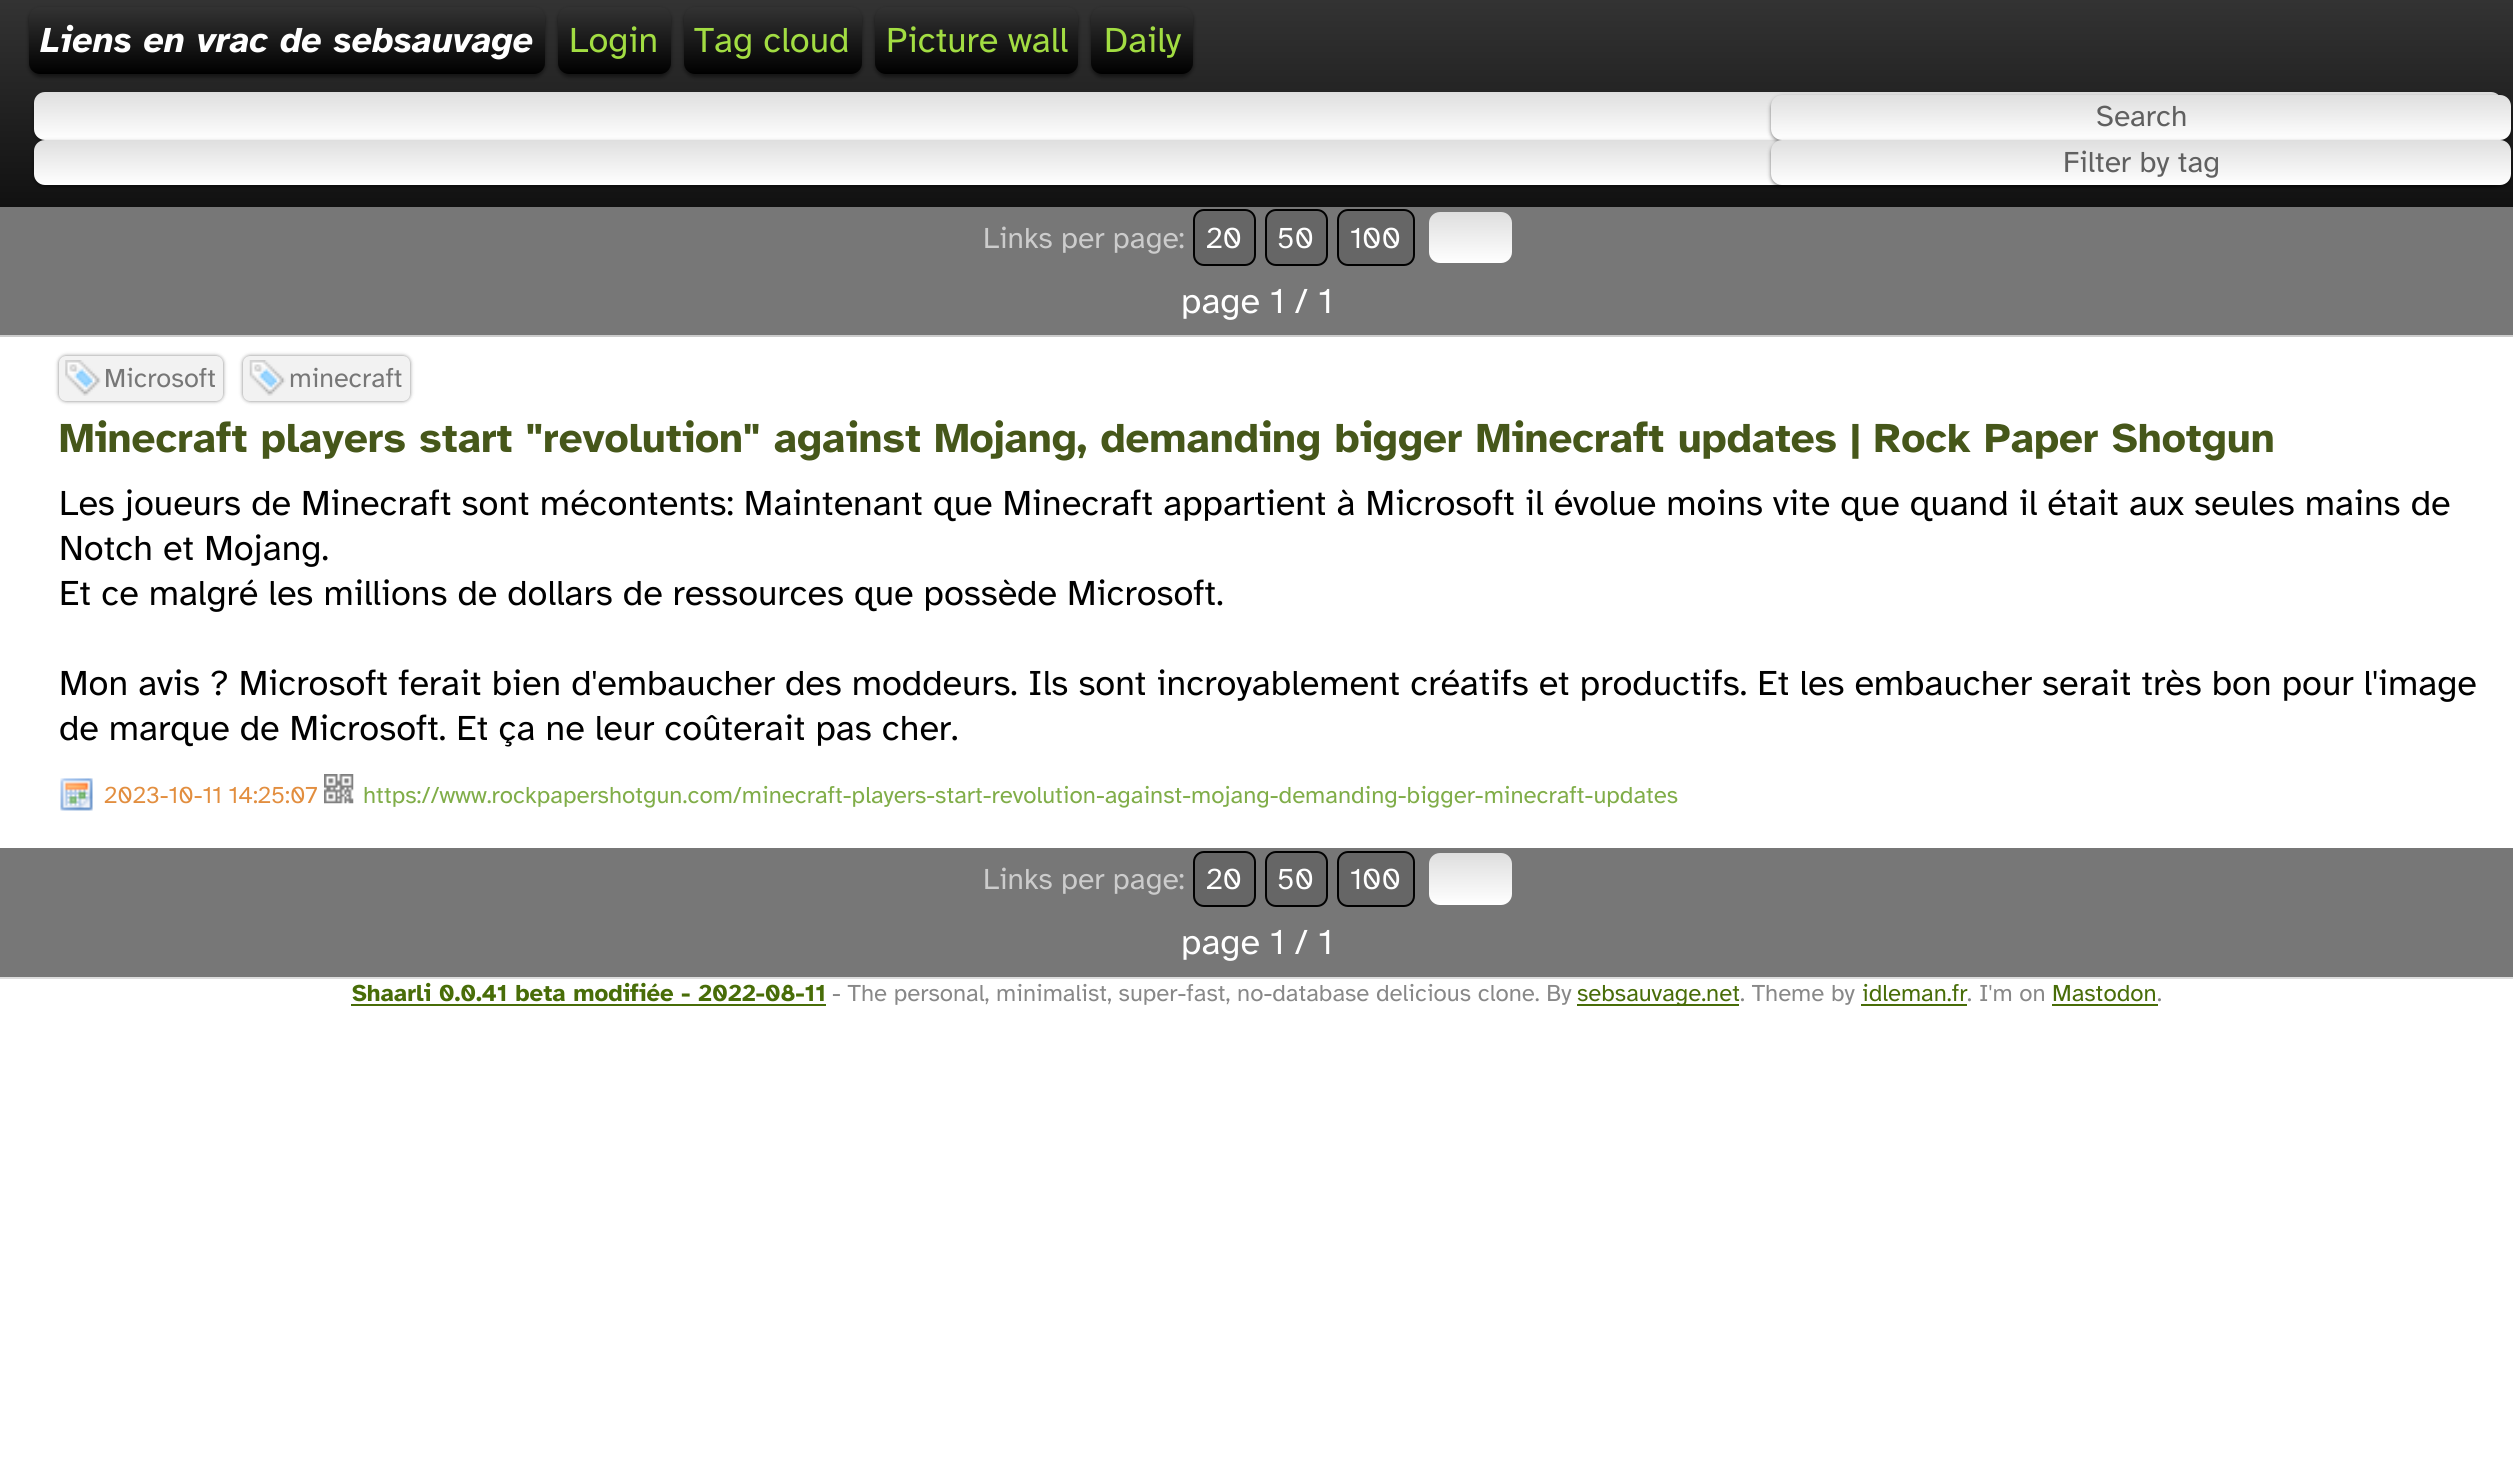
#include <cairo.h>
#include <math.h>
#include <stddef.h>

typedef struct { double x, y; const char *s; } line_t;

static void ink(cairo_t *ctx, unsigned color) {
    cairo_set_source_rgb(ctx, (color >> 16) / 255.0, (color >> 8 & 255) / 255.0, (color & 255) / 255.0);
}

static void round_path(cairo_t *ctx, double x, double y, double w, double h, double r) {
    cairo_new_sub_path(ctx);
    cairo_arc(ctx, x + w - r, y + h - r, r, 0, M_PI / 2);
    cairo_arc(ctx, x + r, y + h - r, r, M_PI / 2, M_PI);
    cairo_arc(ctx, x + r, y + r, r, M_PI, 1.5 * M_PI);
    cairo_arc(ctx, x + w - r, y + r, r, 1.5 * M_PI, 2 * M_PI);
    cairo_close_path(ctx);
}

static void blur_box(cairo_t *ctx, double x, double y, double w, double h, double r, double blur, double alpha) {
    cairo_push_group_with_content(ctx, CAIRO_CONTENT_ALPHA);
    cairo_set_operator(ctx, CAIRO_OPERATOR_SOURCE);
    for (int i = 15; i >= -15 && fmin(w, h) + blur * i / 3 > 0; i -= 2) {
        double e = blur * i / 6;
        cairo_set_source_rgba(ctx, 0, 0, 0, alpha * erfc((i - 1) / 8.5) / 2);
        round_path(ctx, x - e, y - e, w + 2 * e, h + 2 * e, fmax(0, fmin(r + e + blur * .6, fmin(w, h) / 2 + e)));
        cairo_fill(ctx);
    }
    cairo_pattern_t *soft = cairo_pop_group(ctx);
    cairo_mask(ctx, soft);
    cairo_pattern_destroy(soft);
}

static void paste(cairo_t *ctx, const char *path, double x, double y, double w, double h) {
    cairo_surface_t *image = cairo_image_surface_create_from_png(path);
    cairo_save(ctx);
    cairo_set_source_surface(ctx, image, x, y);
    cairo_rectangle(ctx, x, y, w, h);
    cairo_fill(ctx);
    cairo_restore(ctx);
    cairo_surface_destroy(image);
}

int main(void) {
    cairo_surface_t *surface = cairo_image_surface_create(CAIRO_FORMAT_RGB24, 2513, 1482);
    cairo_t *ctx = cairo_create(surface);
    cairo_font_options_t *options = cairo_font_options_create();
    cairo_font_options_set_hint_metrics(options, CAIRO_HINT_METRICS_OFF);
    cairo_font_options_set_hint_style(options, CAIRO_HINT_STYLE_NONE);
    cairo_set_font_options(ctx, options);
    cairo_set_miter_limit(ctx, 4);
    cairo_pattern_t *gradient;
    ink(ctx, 0xFFFFFF);
    cairo_paint(ctx);
    gradient = cairo_pattern_create_linear(1257, 0, 1257, 207);
    cairo_pattern_add_color_stop_rgba(gradient, 0, 0.2, 0.2, 0.2, 1);
    cairo_pattern_add_color_stop_rgba(gradient, 1, 0.067, 0.067, 0.067, 1);
    cairo_set_source(ctx, gradient);
    cairo_pattern_destroy(gradient);
    cairo_rectangle(ctx, 0, 0, 2513, 207);
    cairo_fill(ctx);
    ink(ctx, 0x000000);
    blur_box(ctx, 29, 9, 516, 68, 11, 2, 0.5);
    gradient = cairo_pattern_create_linear(287, 6.7, 287, 74);
    cairo_pattern_add_color_stop_rgba(gradient, 0, 0.2, 0.2, 0.2, 1);
    cairo_pattern_add_color_stop_rgba(gradient, 1, 0, 0, 0, 1);
    cairo_set_source(ctx, gradient);
    cairo_pattern_destroy(gradient);
    round_path(ctx, 29, 7, 516, 67, 11);
    cairo_fill(ctx);
    cairo_select_font_face(ctx, "Atkinson Hyperlegible", CAIRO_FONT_SLANT_ITALIC, CAIRO_FONT_WEIGHT_BOLD);
    cairo_set_font_size(ctx, 36);
    ink(ctx, 0xFFFFFF);
    cairo_move_to(ctx, 41, 52);
    cairo_show_text(ctx, "Liens en vrac de sebsauvage");
    ink(ctx, 0x000000);
    blur_box(ctx, 558, 9, 113, 68, 11, 2, 0.5);
    gradient = cairo_pattern_create_linear(614, 6.7, 614, 74);
    cairo_pattern_add_color_stop_rgba(gradient, 0, 0.2, 0.2, 0.2, 1);
    cairo_pattern_add_color_stop_rgba(gradient, 1, 0, 0, 0, 1);
    cairo_set_source(ctx, gradient);
    cairo_pattern_destroy(gradient);
    round_path(ctx, 558, 7, 113, 67, 11);
    cairo_fill(ctx);
    cairo_select_font_face(ctx, "Atkinson Hyperlegible", CAIRO_FONT_SLANT_NORMAL, CAIRO_FONT_WEIGHT_NORMAL);
    ink(ctx, 0xA2DD42);
    cairo_move_to(ctx, 569, 52);
    cairo_show_text(ctx, "Login");
    ink(ctx, 0x000000);
    blur_box(ctx, 684, 9, 178, 68, 11, 2, 0.5);
    gradient = cairo_pattern_create_linear(773, 6.7, 773, 74);
    cairo_pattern_add_color_stop_rgba(gradient, 0, 0.2, 0.2, 0.2, 1);
    cairo_pattern_add_color_stop_rgba(gradient, 1, 0, 0, 0, 1);
    cairo_set_source(ctx, gradient);
    cairo_pattern_destroy(gradient);
    round_path(ctx, 684, 7, 178, 67, 11);
    cairo_fill(ctx);
    ink(ctx, 0xA2DD42);
    cairo_move_to(ctx, 694, 52);
    cairo_show_text(ctx, "Tag cloud");
    ink(ctx, 0x000000);
    blur_box(ctx, 875, 9, 203, 68, 11, 2, 0.5);
    gradient = cairo_pattern_create_linear(977, 6.7, 977, 74);
    cairo_pattern_add_color_stop_rgba(gradient, 0, 0.2, 0.2, 0.2, 1);
    cairo_pattern_add_color_stop_rgba(gradient, 1, 0, 0, 0, 1);
    cairo_set_source(ctx, gradient);
    cairo_pattern_destroy(gradient);
    round_path(ctx, 875, 7, 203, 67, 11);
    cairo_fill(ctx);
    ink(ctx, 0xA2DD42);
    cairo_move_to(ctx, 886, 52);
    cairo_show_text(ctx, "Picture wall");
    ink(ctx, 0x000000);
    blur_box(ctx, 1091, 9, 102, 68, 11, 2, 0.5);
    gradient = cairo_pattern_create_linear(1142, 6.7, 1142, 74);
    cairo_pattern_add_color_stop_rgba(gradient, 0, 0.2, 0.2, 0.2, 1);
    cairo_pattern_add_color_stop_rgba(gradient, 1, 0, 0, 0, 1);
    cairo_set_source(ctx, gradient);
    cairo_pattern_destroy(gradient);
    round_path(ctx, 1091, 7, 102, 67, 11);
    cairo_fill(ctx);
    ink(ctx, 0xA2DD42);
    cairo_move_to(ctx, 1104, 52);
    cairo_show_text(ctx, "Daily");
    ink(ctx, 0x000000);
    blur_box(ctx, 34, 95, 2468, 47, 11, 2, 0.5);
    gradient = cairo_pattern_create_linear(1268, 92, 1268, 140);
    cairo_pattern_add_color_stop_rgba(gradient, 0, 0.871, 0.871, 0.871, 1);
    cairo_pattern_add_color_stop_rgba(gradient, 1, 1, 1, 1, 1);
    cairo_set_source(ctx, gradient);
    cairo_pattern_destroy(gradient);
    round_path(ctx, 34, 92, 2468, 48, 11);
    cairo_fill(ctx);
    ink(ctx, 0x000000);
    blur_box(ctx, 34, 142, 2468, 45, 11, 2, 0.5);
    gradient = cairo_pattern_create_linear(1268, 139, 1268, 185);
    cairo_pattern_add_color_stop_rgba(gradient, 0, 0.871, 0.871, 0.871, 1);
    cairo_pattern_add_color_stop_rgba(gradient, 1, 1, 1, 1, 1);
    cairo_set_source(ctx, gradient);
    cairo_pattern_destroy(gradient);
    round_path(ctx, 34, 140, 2468, 45, 11);
    cairo_fill(ctx);
    ink(ctx, 0x000000);
    blur_box(ctx, 1771, 97, 740, 45, 11, 2, 0.5);
    gradient = cairo_pattern_create_linear(2141, 94, 2141, 140);
    cairo_pattern_add_color_stop_rgba(gradient, 0, 0.871, 0.871, 0.871, 1);
    cairo_pattern_add_color_stop_rgba(gradient, 1, 1, 1, 1, 1);
    cairo_set_source(ctx, gradient);
    cairo_pattern_destroy(gradient);
    round_path(ctx, 1771, 95, 740, 45, 11);
    cairo_fill(ctx);
    cairo_set_font_size(ctx, 30);
    ink(ctx, 0x606060);
    cairo_move_to(ctx, 2096, 126);
    cairo_show_text(ctx, "Search");
    ink(ctx, 0x000000);
    blur_box(ctx, 1771, 142, 740, 45, 11, 2, 0.5);
    gradient = cairo_pattern_create_linear(2141, 139, 2141, 185);
    cairo_pattern_add_color_stop_rgba(gradient, 0, 0.871, 0.871, 0.871, 1);
    cairo_pattern_add_color_stop_rgba(gradient, 1, 1, 1, 1, 1);
    cairo_set_source(ctx, gradient);
    cairo_pattern_destroy(gradient);
    round_path(ctx, 1771, 140, 740, 45, 11);
    cairo_fill(ctx);
    ink(ctx, 0x606060);
    cairo_move_to(ctx, 2063, 172);
    cairo_show_text(ctx, "Filter by tag");
    ink(ctx, 0x777777);
    cairo_rectangle(ctx, 0, 207, 2513, 128);
    cairo_fill(ctx);
    ink(ctx, 0xCCCCCC);
    cairo_move_to(ctx, 983, 248);
    cairo_show_text(ctx, "Links per page:");
    ink(ctx, 0x666666);
    round_path(ctx, 1194, 210, 61, 55, 10);
    cairo_fill_preserve(ctx);
    ink(ctx, 0x000000);
    cairo_stroke(ctx);
    ink(ctx, 0xFFFFFF);
    cairo_move_to(ctx, 1206, 248);
    cairo_show_text(ctx, "20");
    ink(ctx, 0x666666);
    round_path(ctx, 1266, 210, 61, 55, 10);
    cairo_fill_preserve(ctx);
    ink(ctx, 0x000000);
    cairo_stroke(ctx);
    ink(ctx, 0xFFFFFF);
    cairo_move_to(ctx, 1277, 248);
    cairo_show_text(ctx, "50");
    ink(ctx, 0x666666);
    round_path(ctx, 1338, 210, 76, 55, 10);
    cairo_fill_preserve(ctx);
    ink(ctx, 0x000000);
    cairo_stroke(ctx);
    ink(ctx, 0xFFFFFF);
    cairo_move_to(ctx, 1350, 248);
    cairo_show_text(ctx, "100");
    gradient = cairo_pattern_create_linear(1470, 212, 1470, 263);
    cairo_pattern_add_color_stop_rgba(gradient, 0, 0.871, 0.871, 0.871, 1);
    cairo_pattern_add_color_stop_rgba(gradient, 1, 1, 1, 1, 1);
    cairo_set_source(ctx, gradient);
    cairo_pattern_destroy(gradient);
    round_path(ctx, 1429, 212, 83, 51, 11);
    cairo_fill(ctx);
    cairo_set_font_size(ctx, 36);
    ink(ctx, 0xFFFFFF);
    cairo_move_to(ctx, 1181, 313);
    cairo_show_text(ctx, "page 1 / 1");
    ink(ctx, 0xCCCCCC);
    cairo_rectangle(ctx, 0, 335, 2513, 2);
    cairo_fill(ctx);
    ink(ctx, 0x000000);
    blur_box(ctx, 59, 356, 164, 45, 7, 2, 0.5);
    ink(ctx, 0xF2F2F2);
    round_path(ctx, 59, 356, 164, 45, 7);
    cairo_fill(ctx);
    paste(ctx, "media/1.png", 65, 360, 36, 36);
    cairo_set_font_size(ctx, 27);
    ink(ctx, 0x777777);
    cairo_move_to(ctx, 104, 387);
    cairo_show_text(ctx, "Microsoft");
    ink(ctx, 0x000000);
    blur_box(ctx, 243, 356, 167, 45, 7, 2, 0.5);
    ink(ctx, 0xF2F2F2);
    round_path(ctx, 243, 356, 167, 45, 7);
    cairo_fill(ctx);
    paste(ctx, "media/2.png", 249, 360, 37, 36);
    ink(ctx, 0x777777);
    cairo_move_to(ctx, 289, 387);
    cairo_show_text(ctx, "minecraft");
    cairo_select_font_face(ctx, "Atkinson Hyperlegible", CAIRO_FONT_SLANT_NORMAL, CAIRO_FONT_WEIGHT_BOLD);
    cairo_set_font_size(ctx, 42);
    ink(ctx, 0x46571A);
    cairo_move_to(ctx, 59, 452);
    cairo_show_text(ctx, "Minecraft players start \"revolution\" against Mojang, demanding bigger Minecraft updates | Rock Paper Shotgun");
    cairo_select_font_face(ctx, "Atkinson Hyperlegible", CAIRO_FONT_SLANT_NORMAL, CAIRO_FONT_WEIGHT_NORMAL);
    cairo_set_font_size(ctx, 36);
    ink(ctx, 0x000000);
    {
        static const line_t items[] = {
            {59, 515, "Les joueurs de Minecraft sont mécontents: Maintenant que Minecraft appartient à Microsoft il évolue moins vite que quand il était aux seules mains de"},
            {59, 560, "Notch et Mojang."},
            {59, 605, "Et ce malgré les millions de dollars de ressources que possède Microsoft."},
            {59, 695, "Mon avis ? Microsoft ferait bien d'embaucher des moddeurs. Ils sont incroyablement créatifs et productifs. Et les embaucher serait très bon pour l'image"},
            {59, 740, "de marque de Microsoft. Et ça ne leur coûterait pas cher."},
        };
        for (size_t i = 0; i < sizeof items / sizeof *items; i++) {
            cairo_move_to(ctx, items[i].x, items[i].y);
            cairo_show_text(ctx, items[i].s);
        }
    }
    paste(ctx, "media/3.png", 60, 778, 33, 33);
    cairo_set_font_size(ctx, 24);
    ink(ctx, 0xE28E3F);
    cairo_move_to(ctx, 104, 803);
    cairo_show_text(ctx, "2023-10-11 14:25:07");
    paste(ctx, "media/4.png", 324, 774, 30, 30);
    ink(ctx, 0x80AD48);
    cairo_move_to(ctx, 363, 803);
    cairo_show_text(ctx, "https://www.rockpapershotgun.com/minecraft-players-start-revolution-against-mojang-demanding-bigger-minecraft-updates");
    ink(ctx, 0x777777);
    cairo_rectangle(ctx, 0, 848, 2513, 129);
    cairo_fill(ctx);
    cairo_set_font_size(ctx, 30);
    ink(ctx, 0xCCCCCC);
    cairo_move_to(ctx, 983, 889);
    cairo_show_text(ctx, "Links per page:");
    ink(ctx, 0x666666);
    round_path(ctx, 1194, 852, 61, 54, 10);
    cairo_fill_preserve(ctx);
    ink(ctx, 0x000000);
    cairo_stroke(ctx);
    ink(ctx, 0xFFFFFF);
    cairo_move_to(ctx, 1206, 889);
    cairo_show_text(ctx, "20");
    ink(ctx, 0x666666);
    round_path(ctx, 1266, 852, 61, 54, 10);
    cairo_fill_preserve(ctx);
    ink(ctx, 0x000000);
    cairo_stroke(ctx);
    ink(ctx, 0xFFFFFF);
    cairo_move_to(ctx, 1277, 889);
    cairo_show_text(ctx, "50");
    ink(ctx, 0x666666);
    round_path(ctx, 1338, 852, 76, 54, 10);
    cairo_fill_preserve(ctx);
    ink(ctx, 0x000000);
    cairo_stroke(ctx);
    ink(ctx, 0xFFFFFF);
    cairo_move_to(ctx, 1350, 889);
    cairo_show_text(ctx, "100");
    gradient = cairo_pattern_create_linear(1470, 853, 1470, 905);
    cairo_pattern_add_color_stop_rgba(gradient, 0, 0.871, 0.871, 0.871, 1);
    cairo_pattern_add_color_stop_rgba(gradient, 1, 1, 1, 1, 1);
    cairo_set_source(ctx, gradient);
    cairo_pattern_destroy(gradient);
    round_path(ctx, 1429, 853, 83, 52, 11);
    cairo_fill(ctx);
    cairo_set_font_size(ctx, 36);
    ink(ctx, 0xFFFFFF);
    cairo_move_to(ctx, 1181, 954);
    cairo_show_text(ctx, "page 1 / 1");
    ink(ctx, 0xDDDDDD);
    cairo_rectangle(ctx, 0, 977, 2513, 2);
    cairo_fill(ctx);
    cairo_select_font_face(ctx, "Atkinson Hyperlegible", CAIRO_FONT_SLANT_NORMAL, CAIRO_FONT_WEIGHT_BOLD);
    cairo_set_font_size(ctx, 24);
    ink(ctx, 0x486D08);
    cairo_move_to(ctx, 352, 1001);
    cairo_show_text(ctx, "Shaarli 0.0.41 beta modifiée - 2022-08-11");
    cairo_rectangle(ctx, 351, 1004, 475, 2);
    cairo_fill(ctx);
    cairo_select_font_face(ctx, "Atkinson Hyperlegible", CAIRO_FONT_SLANT_NORMAL, CAIRO_FONT_WEIGHT_NORMAL);
    ink(ctx, 0x888888);
    cairo_move_to(ctx, 832, 1001);
    cairo_show_text(ctx, "- The personal, minimalist, super-fast, no-database delicious clone. By");
    ink(ctx, 0x486D08);
    cairo_rectangle(ctx, 1577, 1004, 162, 2);
    cairo_fill(ctx);
    cairo_move_to(ctx, 1577, 1001);
    cairo_show_text(ctx, "sebsauvage.net");
    ink(ctx, 0x888888);
    cairo_move_to(ctx, 1740, 1001);
    cairo_show_text(ctx, ". Theme by");
    ink(ctx, 0x486D08);
    cairo_move_to(ctx, 1862, 1001);
    cairo_show_text(ctx, "idleman.fr");
    cairo_rectangle(ctx, 1861, 1004, 106, 2);
    cairo_fill(ctx);
    ink(ctx, 0x888888);
    cairo_move_to(ctx, 1967, 1001);
    cairo_show_text(ctx, ". I'm on");
    ink(ctx, 0x486D08);
    cairo_move_to(ctx, 2052, 1001);
    cairo_show_text(ctx, "Mastodon");
    cairo_rectangle(ctx, 2052, 1004, 106, 2);
    cairo_fill(ctx);
    ink(ctx, 0x888888);
    cairo_move_to(ctx, 2157, 1001);
    cairo_show_text(ctx, ".");
    cairo_surface_write_to_png(surface, "image.png");
    cairo_font_options_destroy(options);
    cairo_destroy(ctx);
    cairo_surface_destroy(surface);
    return 0;
}
